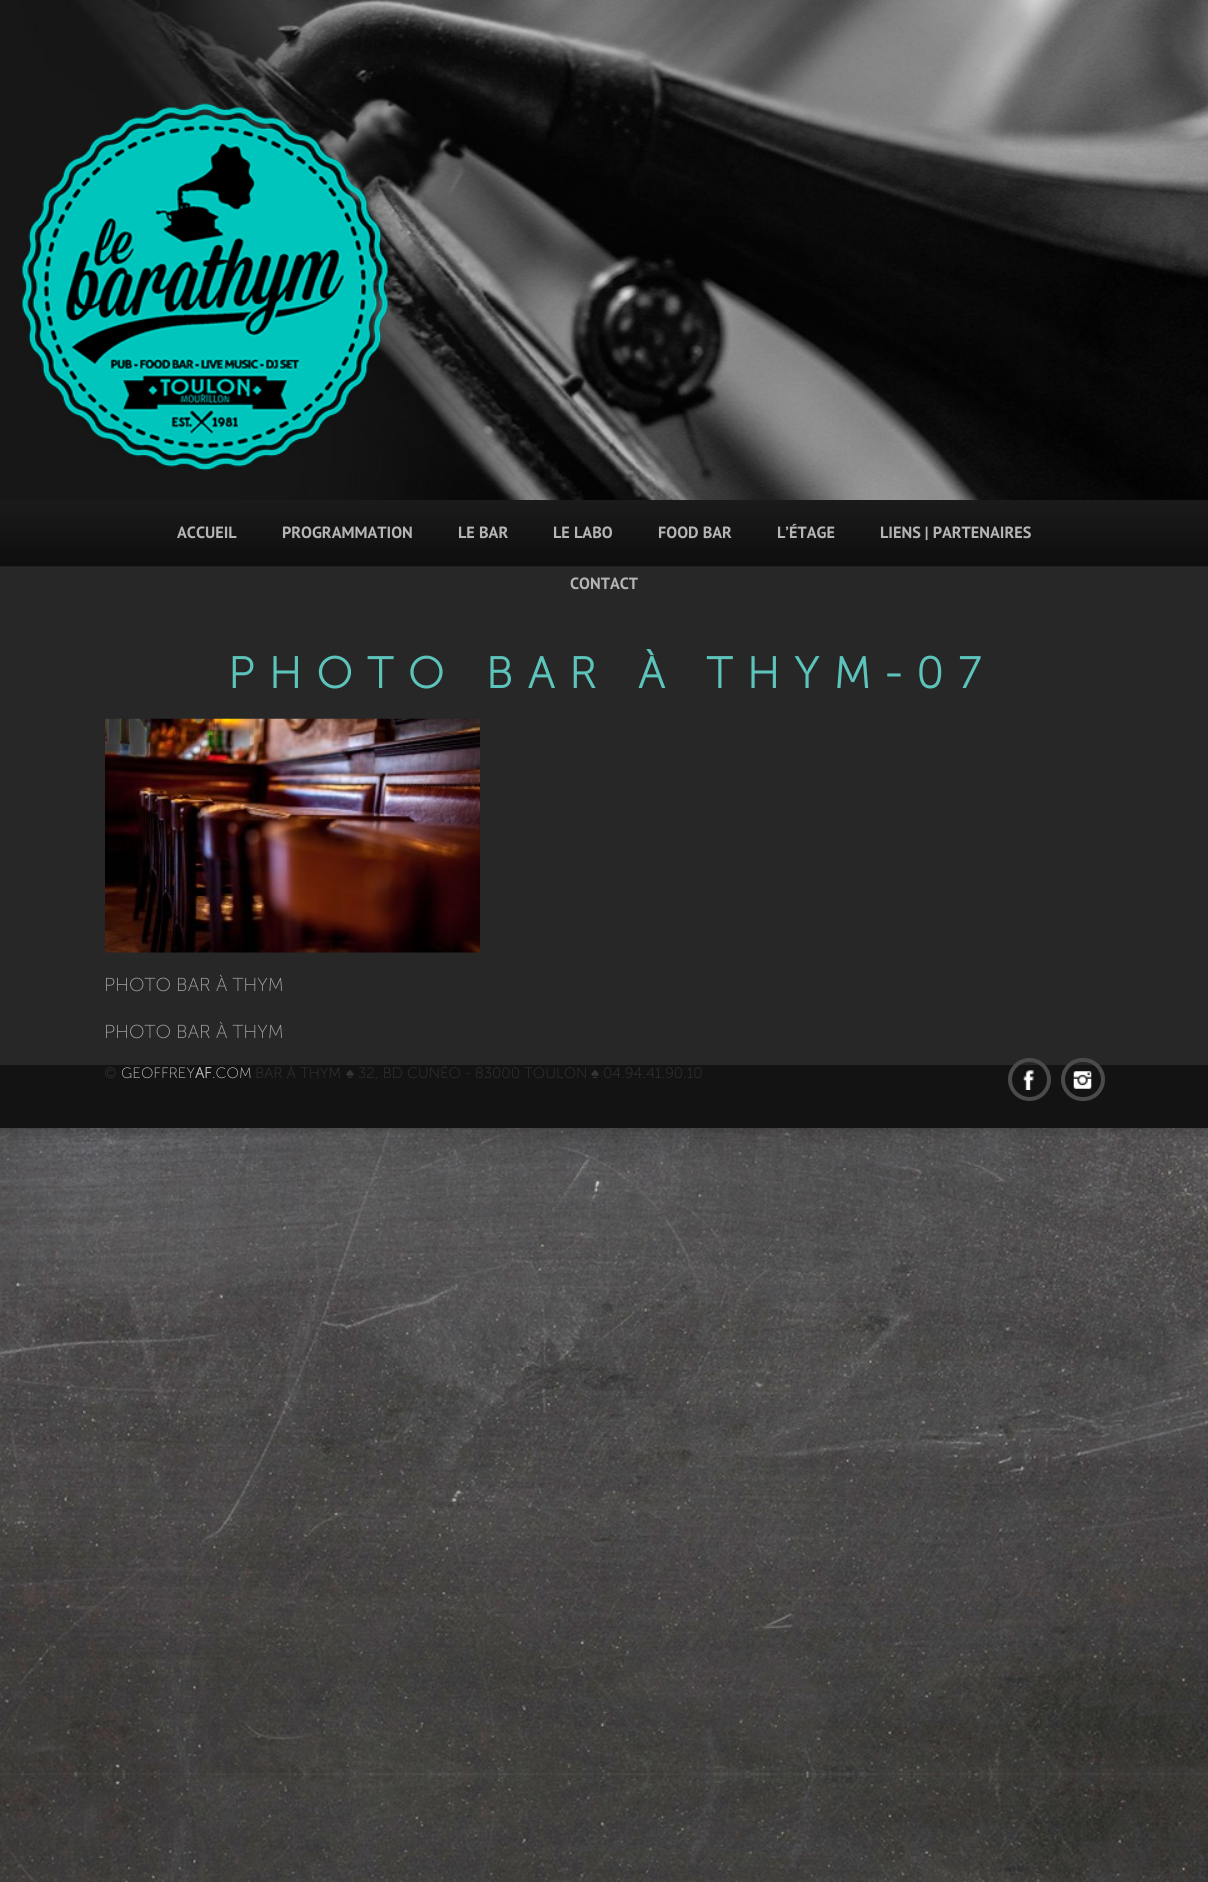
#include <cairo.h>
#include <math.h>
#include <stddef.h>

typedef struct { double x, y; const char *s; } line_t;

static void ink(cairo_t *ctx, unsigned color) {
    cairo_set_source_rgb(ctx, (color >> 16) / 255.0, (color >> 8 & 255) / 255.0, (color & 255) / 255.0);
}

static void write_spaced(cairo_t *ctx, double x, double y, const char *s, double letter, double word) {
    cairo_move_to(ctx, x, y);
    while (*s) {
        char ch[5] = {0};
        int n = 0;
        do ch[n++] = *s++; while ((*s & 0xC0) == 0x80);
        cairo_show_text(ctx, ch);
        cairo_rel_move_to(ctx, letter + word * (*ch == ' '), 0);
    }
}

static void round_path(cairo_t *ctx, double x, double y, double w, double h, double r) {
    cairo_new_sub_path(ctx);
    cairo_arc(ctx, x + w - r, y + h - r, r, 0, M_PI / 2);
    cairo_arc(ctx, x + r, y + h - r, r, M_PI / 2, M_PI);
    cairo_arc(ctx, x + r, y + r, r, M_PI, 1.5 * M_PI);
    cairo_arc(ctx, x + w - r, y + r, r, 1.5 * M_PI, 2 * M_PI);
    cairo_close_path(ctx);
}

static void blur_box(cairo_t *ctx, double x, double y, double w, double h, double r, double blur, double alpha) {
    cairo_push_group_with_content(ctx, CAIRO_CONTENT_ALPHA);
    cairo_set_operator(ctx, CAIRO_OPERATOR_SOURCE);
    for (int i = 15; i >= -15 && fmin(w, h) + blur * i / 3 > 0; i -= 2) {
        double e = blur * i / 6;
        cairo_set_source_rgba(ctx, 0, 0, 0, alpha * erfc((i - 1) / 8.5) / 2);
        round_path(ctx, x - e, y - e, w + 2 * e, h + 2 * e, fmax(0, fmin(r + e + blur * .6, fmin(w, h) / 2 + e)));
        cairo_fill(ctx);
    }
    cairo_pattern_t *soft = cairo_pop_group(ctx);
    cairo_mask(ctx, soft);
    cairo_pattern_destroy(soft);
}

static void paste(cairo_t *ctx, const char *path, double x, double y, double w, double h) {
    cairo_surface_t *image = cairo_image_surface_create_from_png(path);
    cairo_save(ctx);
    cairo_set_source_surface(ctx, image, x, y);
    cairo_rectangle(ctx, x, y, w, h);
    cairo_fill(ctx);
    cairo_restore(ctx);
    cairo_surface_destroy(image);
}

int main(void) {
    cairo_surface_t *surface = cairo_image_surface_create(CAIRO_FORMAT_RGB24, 1208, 1882);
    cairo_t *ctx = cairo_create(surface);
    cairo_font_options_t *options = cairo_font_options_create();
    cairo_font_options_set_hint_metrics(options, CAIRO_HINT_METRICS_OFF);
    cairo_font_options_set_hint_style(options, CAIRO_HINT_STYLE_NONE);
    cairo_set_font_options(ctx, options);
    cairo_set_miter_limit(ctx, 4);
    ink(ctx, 0xFFFFFF);
    cairo_paint(ctx);
    paste(ctx, "media/1.png", 0, 1128, 1208, 754);
    ink(ctx, 0x000000);
    blur_box(ctx, 0, 0, 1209, 1128, 0, 9.5, 0.35);
    ink(ctx, 0x272727);
    cairo_rectangle(ctx, 0, 566, 1208, 499);
    cairo_fill(ctx);
    paste(ctx, "media/2.png", 0, 0, 1208, 500);
    paste(ctx, "media/3.png", 22, 103, 367, 368);
    paste(ctx, "media/4.png", 0, 500, 1208, 67);
    cairo_select_font_face(ctx, "PT Sans", CAIRO_FONT_SLANT_NORMAL, CAIRO_FONT_WEIGHT_BOLD);
    cairo_set_font_size(ctx, 16.25);
    ink(ctx, 0xB5B5B5);
    {
        static const line_t items[] = {
            {177, 538, "ACCUEIL"},
            {282, 538, "PROGRAMMATION"},
            {458, 538, "LE BAR"},
            {553, 538, "LE LABO"},
            {658, 538, "FOOD BAR"},
            {777, 538, "L’ÉTAGE"},
            {880, 538, "LIENS | PARTENAIRES"},
            {570, 589, "CONTACT"},
        };
        for (size_t i = 0; i < sizeof items / sizeof *items; i++) {
            cairo_move_to(ctx, items[i].x, items[i].y);
            cairo_show_text(ctx, items[i].s);
        }
    }
    cairo_select_font_face(ctx, "Museo Sans", CAIRO_FONT_SLANT_NORMAL, CAIRO_FONT_WEIGHT_BOLD);
    cairo_set_font_size(ctx, 43.75);
    ink(ctx, 0x5CC4BB);
    write_spaced(ctx, 228, 688, "PHOTO BAR À THYM-07", 14.9, 0);
    paste(ctx, "media/5.png", 105, 718, 375, 235);
    cairo_select_font_face(ctx, "Museo Sans ExtraLight", CAIRO_FONT_SLANT_NORMAL, CAIRO_FONT_WEIGHT_NORMAL);
    cairo_set_font_size(ctx, 18.75);
    ink(ctx, 0xA3A3A3);
    cairo_move_to(ctx, 104, 991);
    cairo_show_text(ctx, "PHOTO BAR À THYM");
    cairo_move_to(ctx, 104, 1038);
    cairo_show_text(ctx, "PHOTO BAR À THYM");
    ink(ctx, 0x131313);
    cairo_rectangle(ctx, 0, 1065, 1208, 63);
    cairo_fill(ctx);
    cairo_set_font_size(ctx, 15);
    ink(ctx, 0x353535);
    cairo_move_to(ctx, 104, 1078);
    cairo_show_text(ctx, "©");
    ink(ctx, 0xC0C0C0);
    cairo_move_to(ctx, 121, 1078);
    cairo_show_text(ctx, "GEOFFREY");
    cairo_select_font_face(ctx, "Museo Sans", CAIRO_FONT_SLANT_NORMAL, CAIRO_FONT_WEIGHT_BOLD);
    cairo_move_to(ctx, 195, 1078);
    cairo_show_text(ctx, "AF");
    cairo_select_font_face(ctx, "Museo Sans ExtraLight", CAIRO_FONT_SLANT_NORMAL, CAIRO_FONT_WEIGHT_NORMAL);
    cairo_move_to(ctx, 212, 1078);
    cairo_show_text(ctx, ".COM");
    ink(ctx, 0x353535);
    cairo_move_to(ctx, 255, 1078);
    cairo_show_text(ctx, "BAR À THYM");
    cairo_select_font_face(ctx, "Liberation Sans", CAIRO_FONT_SLANT_NORMAL, CAIRO_FONT_WEIGHT_BOLD);
    cairo_move_to(ctx, 346, 1078);
    cairo_show_text(ctx, "♠");
    cairo_select_font_face(ctx, "Museo Sans ExtraLight", CAIRO_FONT_SLANT_NORMAL, CAIRO_FONT_WEIGHT_NORMAL);
    cairo_move_to(ctx, 358, 1078);
    cairo_show_text(ctx, "32, BD CUNÉO - 83000 TOULON");
    cairo_select_font_face(ctx, "Liberation Sans", CAIRO_FONT_SLANT_NORMAL, CAIRO_FONT_WEIGHT_BOLD);
    cairo_move_to(ctx, 591, 1078);
    cairo_show_text(ctx, "♠");
    cairo_select_font_face(ctx, "Museo Sans ExtraLight", CAIRO_FONT_SLANT_NORMAL, CAIRO_FONT_WEIGHT_NORMAL);
    cairo_move_to(ctx, 603, 1078);
    cairo_show_text(ctx, "04.94.41.90.10");
    paste(ctx, "media/6.png", 1023, 1070, 11, 20);
    cairo_arc(ctx, 1029.5, 1079.5, 19.5, 0, 2 * M_PI);
    ink(ctx, 0x4B4B4B);
    cairo_set_line_width(ctx, 4);
    cairo_stroke(ctx);
    paste(ctx, "media/7.png", 1073, 1071, 19, 18);
    round_path(ctx, 1063, 1060, 40, 39, 19.5);
    cairo_stroke(ctx);
    cairo_surface_write_to_png(surface, "image.png");
    cairo_font_options_destroy(options);
    cairo_destroy(ctx);
    cairo_surface_destroy(surface);
    return 0;
}
